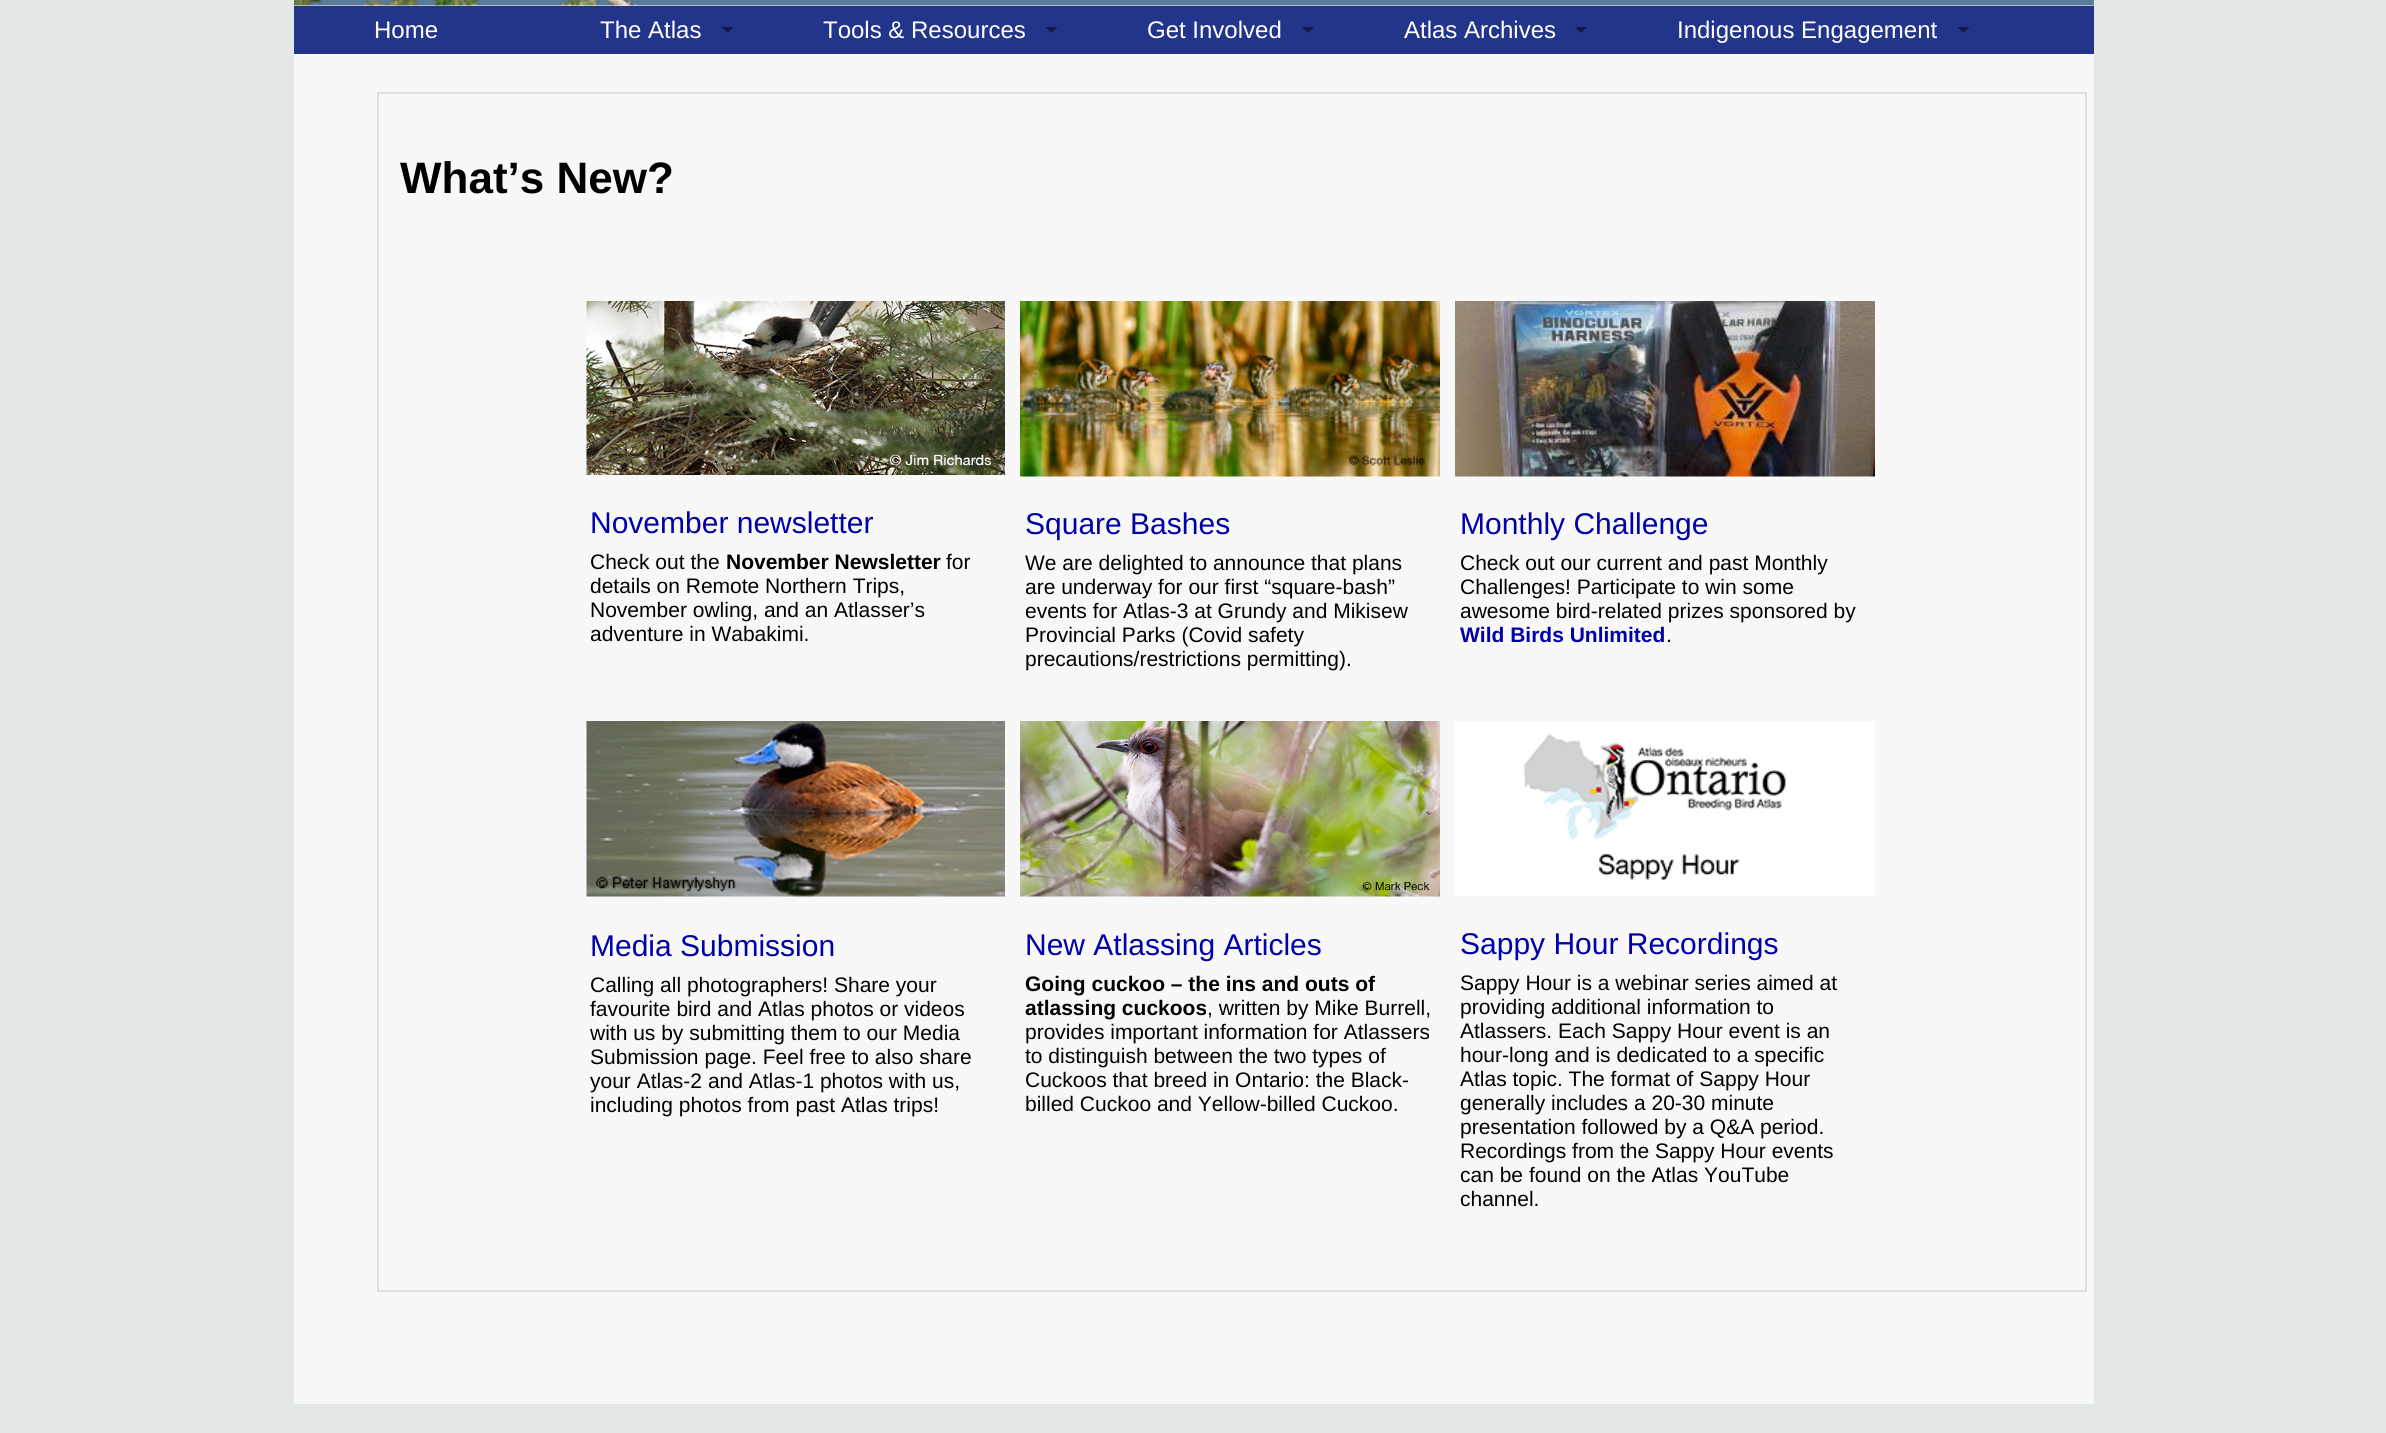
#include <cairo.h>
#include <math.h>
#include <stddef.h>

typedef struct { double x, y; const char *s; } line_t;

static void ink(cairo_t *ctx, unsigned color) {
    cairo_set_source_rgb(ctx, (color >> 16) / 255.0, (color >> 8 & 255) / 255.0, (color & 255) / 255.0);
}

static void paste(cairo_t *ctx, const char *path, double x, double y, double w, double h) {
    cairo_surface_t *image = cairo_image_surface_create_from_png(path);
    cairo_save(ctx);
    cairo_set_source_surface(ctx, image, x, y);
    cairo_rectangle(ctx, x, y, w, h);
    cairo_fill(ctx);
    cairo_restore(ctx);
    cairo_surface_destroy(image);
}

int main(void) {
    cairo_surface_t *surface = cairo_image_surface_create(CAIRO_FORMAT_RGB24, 2386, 1433);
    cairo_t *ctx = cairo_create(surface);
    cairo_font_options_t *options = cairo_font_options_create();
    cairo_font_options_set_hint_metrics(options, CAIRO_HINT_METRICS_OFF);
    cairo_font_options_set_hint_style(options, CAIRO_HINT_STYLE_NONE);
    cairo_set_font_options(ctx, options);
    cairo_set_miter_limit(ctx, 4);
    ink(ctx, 0xE5E8E8);
    cairo_paint(ctx);
    ink(ctx, 0xFFFFFF);
    cairo_rectangle(ctx, 294, 5, 1800, 1);
    cairo_fill(ctx);
    paste(ctx, "media/1.png", 294, 0, 1800, 6);
    ink(ctx, 0x23358B);
    cairo_rectangle(ctx, 294, 6, 1800, 48);
    cairo_fill(ctx);
    cairo_select_font_face(ctx, "Liberation Sans", CAIRO_FONT_SLANT_NORMAL, CAIRO_FONT_WEIGHT_NORMAL);
    cairo_set_font_size(ctx, 24);
    ink(ctx, 0xFFFFFF);
    cairo_move_to(ctx, 374, 38);
    cairo_show_text(ctx, "Home");
    cairo_move_to(ctx, 600, 38);
    cairo_show_text(ctx, "The Atlas");
    ink(ctx, 0x121B46);
    cairo_new_path(ctx);
    cairo_move_to(ctx, 721.5, 27);
    cairo_line_to(ctx, 733.5, 27);
    cairo_line_to(ctx, 727.5, 33);
    cairo_close_path(ctx);
    cairo_fill(ctx);
    ink(ctx, 0xFFFFFF);
    cairo_move_to(ctx, 823, 38);
    cairo_show_text(ctx, "Tools & Resources");
    ink(ctx, 0x121B46);
    cairo_new_path(ctx);
    cairo_move_to(ctx, 1045.5, 27);
    cairo_line_to(ctx, 1057.5, 27);
    cairo_line_to(ctx, 1051.5, 33);
    cairo_close_path(ctx);
    cairo_fill(ctx);
    ink(ctx, 0xFFFFFF);
    cairo_move_to(ctx, 1147, 38);
    cairo_show_text(ctx, "Get Involved");
    ink(ctx, 0x121B46);
    cairo_new_path(ctx);
    cairo_move_to(ctx, 1302, 27);
    cairo_line_to(ctx, 1314, 27);
    cairo_line_to(ctx, 1308, 33);
    cairo_close_path(ctx);
    cairo_fill(ctx);
    ink(ctx, 0xFFFFFF);
    cairo_move_to(ctx, 1404, 38);
    cairo_show_text(ctx, "Atlas Archives");
    ink(ctx, 0x121B46);
    cairo_new_path(ctx);
    cairo_move_to(ctx, 1575, 27);
    cairo_line_to(ctx, 1587, 27);
    cairo_line_to(ctx, 1581, 33);
    cairo_close_path(ctx);
    cairo_fill(ctx);
    ink(ctx, 0xFFFFFF);
    cairo_move_to(ctx, 1677, 38);
    cairo_show_text(ctx, "Indigenous Engagement");
    ink(ctx, 0x121B46);
    cairo_new_path(ctx);
    cairo_move_to(ctx, 1957.5, 27);
    cairo_line_to(ctx, 1969.5, 27);
    cairo_line_to(ctx, 1963.5, 33);
    cairo_close_path(ctx);
    cairo_fill(ctx);
    ink(ctx, 0xF8F8F8);
    cairo_rectangle(ctx, 294, 54, 1800, 1350);
    cairo_fill(ctx);
    cairo_rectangle(ctx, 378, 93, 1708, 1198);
    ink(ctx, 0xE0E0E0);
    cairo_stroke(ctx);
    cairo_select_font_face(ctx, "Liberation Sans", CAIRO_FONT_SLANT_NORMAL, CAIRO_FONT_WEIGHT_BOLD);
    cairo_set_font_size(ctx, 44);
    ink(ctx, 0x000000);
    cairo_move_to(ctx, 400, 193);
    cairo_show_text(ctx, "What’s New?");
    paste(ctx, "media/2.png", 586, 301, 419, 174);
    cairo_select_font_face(ctx, "Liberation Sans", CAIRO_FONT_SLANT_NORMAL, CAIRO_FONT_WEIGHT_NORMAL);
    cairo_set_font_size(ctx, 30);
    ink(ctx, 0x0000AA);
    cairo_move_to(ctx, 590, 533);
    cairo_show_text(ctx, "November newsletter");
    cairo_set_font_size(ctx, 21);
    ink(ctx, 0x000000);
    cairo_move_to(ctx, 590, 569);
    cairo_show_text(ctx, "Check out the");
    cairo_select_font_face(ctx, "Liberation Sans", CAIRO_FONT_SLANT_NORMAL, CAIRO_FONT_WEIGHT_BOLD);
    cairo_move_to(ctx, 726, 569);
    cairo_show_text(ctx, "November Newsletter");
    cairo_select_font_face(ctx, "Liberation Sans", CAIRO_FONT_SLANT_NORMAL, CAIRO_FONT_WEIGHT_NORMAL);
    {
        static const line_t items[] = {
            {946, 569, "for"},
            {590, 593, "details on Remote Northern Trips,"},
            {590, 617, "November owling, and an Atlasser’s"},
            {590, 641, "adventure in Wabakimi."},
        };
        for (size_t i = 0; i < sizeof items / sizeof *items; i++) {
            cairo_move_to(ctx, items[i].x, items[i].y);
            cairo_show_text(ctx, items[i].s);
        }
    }
    paste(ctx, "media/3.png", 1020, 301, 420, 176);
    cairo_set_font_size(ctx, 30);
    ink(ctx, 0x0000AA);
    cairo_move_to(ctx, 1025, 534);
    cairo_show_text(ctx, "Square Bashes");
    cairo_set_font_size(ctx, 21);
    ink(ctx, 0x000000);
    {
        static const line_t items[] = {
            {1025, 570, "We are delighted to announce that plans"},
            {1025, 594, "are underway for our first “square-bash”"},
            {1025, 618, "events for Atlas-3 at Grundy and Mikisew"},
            {1025, 642, "Provincial Parks (Covid safety"},
            {1025, 666, "precautions/restrictions permitting)."},
        };
        for (size_t i = 0; i < sizeof items / sizeof *items; i++) {
            cairo_move_to(ctx, items[i].x, items[i].y);
            cairo_show_text(ctx, items[i].s);
        }
    }
    paste(ctx, "media/4.png", 1455, 301, 420, 176);
    cairo_set_font_size(ctx, 30);
    ink(ctx, 0x0000AA);
    cairo_move_to(ctx, 1460, 534);
    cairo_show_text(ctx, "Monthly Challenge");
    cairo_set_font_size(ctx, 21);
    ink(ctx, 0x000000);
    {
        static const line_t items[] = {
            {1460, 570, "Check out our current and past Monthly"},
            {1460, 594, "Challenges! Participate to win some"},
            {1460, 618, "awesome bird-related prizes sponsored by"},
        };
        for (size_t i = 0; i < sizeof items / sizeof *items; i++) {
            cairo_move_to(ctx, items[i].x, items[i].y);
            cairo_show_text(ctx, items[i].s);
        }
    }
    cairo_select_font_face(ctx, "Liberation Sans", CAIRO_FONT_SLANT_NORMAL, CAIRO_FONT_WEIGHT_BOLD);
    ink(ctx, 0x0000AA);
    cairo_move_to(ctx, 1460, 642);
    cairo_show_text(ctx, "Wild Birds Unlimited");
    cairo_select_font_face(ctx, "Liberation Sans", CAIRO_FONT_SLANT_NORMAL, CAIRO_FONT_WEIGHT_NORMAL);
    ink(ctx, 0x000000);
    cairo_move_to(ctx, 1666, 642);
    cairo_show_text(ctx, ".");
    paste(ctx, "media/5.png", 586, 721, 419, 176);
    cairo_set_font_size(ctx, 30);
    ink(ctx, 0x0000AA);
    cairo_move_to(ctx, 590, 956);
    cairo_show_text(ctx, "Media Submission");
    cairo_set_font_size(ctx, 21);
    ink(ctx, 0x000000);
    {
        static const line_t items[] = {
            {590, 992, "Calling all photographers! Share your"},
            {590, 1016, "favourite bird and Atlas photos or videos"},
            {590, 1040, "with us by submitting them to our Media"},
            {590, 1064, "Submission page. Feel free to also share"},
            {590, 1088, "your Atlas-2 and Atlas-1 photos with us,"},
            {590, 1112, "including photos from past Atlas trips!"},
        };
        for (size_t i = 0; i < sizeof items / sizeof *items; i++) {
            cairo_move_to(ctx, items[i].x, items[i].y);
            cairo_show_text(ctx, items[i].s);
        }
    }
    paste(ctx, "media/6.png", 1020, 721, 420, 176);
    cairo_set_font_size(ctx, 30);
    ink(ctx, 0x0000AA);
    cairo_move_to(ctx, 1025, 955);
    cairo_show_text(ctx, "New Atlassing Articles");
    cairo_select_font_face(ctx, "Liberation Sans", CAIRO_FONT_SLANT_NORMAL, CAIRO_FONT_WEIGHT_BOLD);
    cairo_set_font_size(ctx, 21);
    ink(ctx, 0x000000);
    cairo_move_to(ctx, 1025, 991);
    cairo_show_text(ctx, "Going cuckoo – the ins and outs of");
    cairo_move_to(ctx, 1025, 1015);
    cairo_show_text(ctx, "atlassing cuckoos");
    cairo_select_font_face(ctx, "Liberation Sans", CAIRO_FONT_SLANT_NORMAL, CAIRO_FONT_WEIGHT_NORMAL);
    {
        static const line_t items[] = {
            {1207, 1015, ", written by Mike Burrell,"},
            {1025, 1039, "provides important information for Atlassers"},
            {1025, 1063, "to distinguish between the two types of"},
            {1025, 1087, "Cuckoos that breed in Ontario: the Black-"},
            {1025, 1111, "billed Cuckoo and Yellow-billed Cuckoo."},
        };
        for (size_t i = 0; i < sizeof items / sizeof *items; i++) {
            cairo_move_to(ctx, items[i].x, items[i].y);
            cairo_show_text(ctx, items[i].s);
        }
    }
    paste(ctx, "media/7.png", 1455, 721, 420, 175);
    cairo_set_font_size(ctx, 30);
    ink(ctx, 0x0000AA);
    cairo_move_to(ctx, 1460, 954);
    cairo_show_text(ctx, "Sappy Hour Recordings");
    cairo_set_font_size(ctx, 21);
    ink(ctx, 0x000000);
    {
        static const line_t items[] = {
            {1460, 990, "Sappy Hour is a webinar series aimed at"},
            {1460, 1014, "providing additional information to"},
            {1460, 1038, "Atlassers. Each Sappy Hour event is an"},
            {1460, 1062, "hour-long and is dedicated to a specific"},
            {1460, 1086, "Atlas topic. The format of Sappy Hour"},
            {1460, 1110, "generally includes a 20-30 minute"},
            {1460, 1134, "presentation followed by a Q&A period."},
            {1460, 1158, "Recordings from the Sappy Hour events"},
            {1460, 1182, "can be found on the Atlas YouTube"},
            {1460, 1206, "channel."},
        };
        for (size_t i = 0; i < sizeof items / sizeof *items; i++) {
            cairo_move_to(ctx, items[i].x, items[i].y);
            cairo_show_text(ctx, items[i].s);
        }
    }
    cairo_surface_write_to_png(surface, "image.png");
    cairo_font_options_destroy(options);
    cairo_destroy(ctx);
    cairo_surface_destroy(surface);
    return 0;
}
